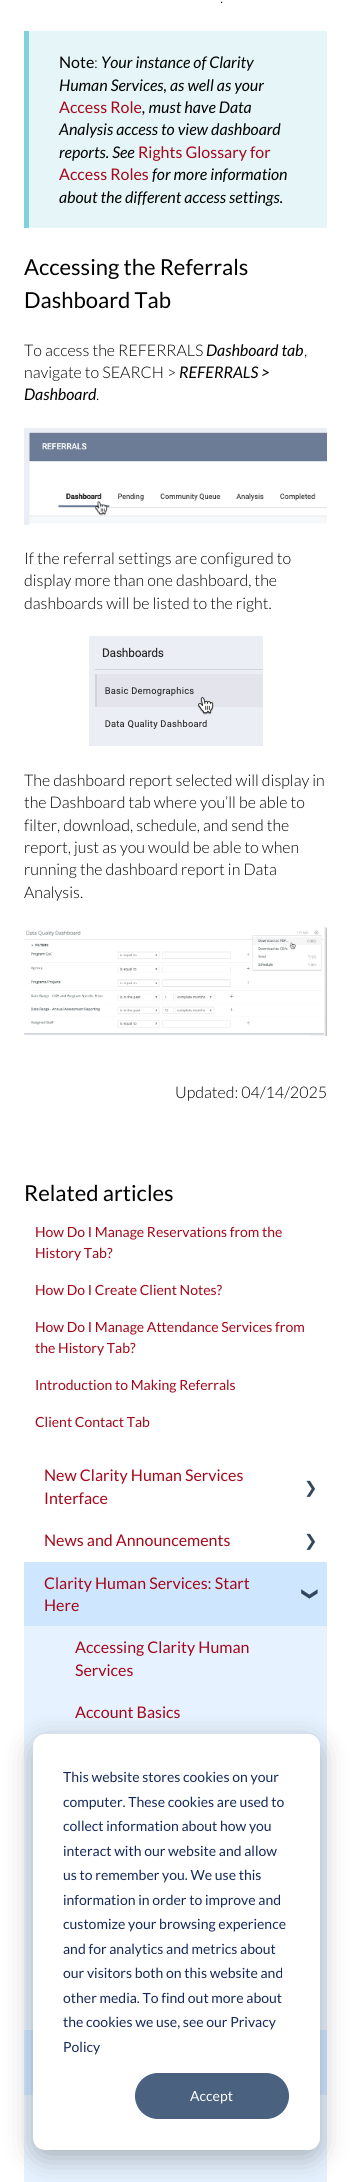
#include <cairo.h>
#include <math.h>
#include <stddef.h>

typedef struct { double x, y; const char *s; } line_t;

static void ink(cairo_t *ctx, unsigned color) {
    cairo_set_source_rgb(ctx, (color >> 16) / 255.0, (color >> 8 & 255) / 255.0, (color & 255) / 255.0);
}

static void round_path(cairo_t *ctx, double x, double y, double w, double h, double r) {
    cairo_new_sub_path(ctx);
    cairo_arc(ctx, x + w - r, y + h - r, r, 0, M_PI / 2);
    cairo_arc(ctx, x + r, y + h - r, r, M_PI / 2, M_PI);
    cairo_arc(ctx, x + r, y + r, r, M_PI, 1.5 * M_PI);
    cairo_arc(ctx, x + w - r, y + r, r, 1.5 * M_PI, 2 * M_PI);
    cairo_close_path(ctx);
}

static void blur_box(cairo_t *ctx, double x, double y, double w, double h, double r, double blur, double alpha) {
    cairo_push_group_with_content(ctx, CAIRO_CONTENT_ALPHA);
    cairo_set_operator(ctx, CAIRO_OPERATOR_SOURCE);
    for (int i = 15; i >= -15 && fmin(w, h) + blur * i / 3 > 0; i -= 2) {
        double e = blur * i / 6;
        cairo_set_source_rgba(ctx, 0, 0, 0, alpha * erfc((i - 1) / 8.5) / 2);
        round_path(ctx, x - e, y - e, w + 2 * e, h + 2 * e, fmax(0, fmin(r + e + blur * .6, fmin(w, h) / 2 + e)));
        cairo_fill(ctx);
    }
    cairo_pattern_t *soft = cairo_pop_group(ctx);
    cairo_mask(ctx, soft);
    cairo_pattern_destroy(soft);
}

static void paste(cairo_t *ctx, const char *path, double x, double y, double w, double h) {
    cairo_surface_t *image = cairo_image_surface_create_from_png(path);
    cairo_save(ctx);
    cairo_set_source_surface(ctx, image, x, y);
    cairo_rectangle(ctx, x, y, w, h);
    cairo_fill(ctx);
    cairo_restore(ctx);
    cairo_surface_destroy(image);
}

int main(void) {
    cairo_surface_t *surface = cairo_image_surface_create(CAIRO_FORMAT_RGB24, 351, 2182);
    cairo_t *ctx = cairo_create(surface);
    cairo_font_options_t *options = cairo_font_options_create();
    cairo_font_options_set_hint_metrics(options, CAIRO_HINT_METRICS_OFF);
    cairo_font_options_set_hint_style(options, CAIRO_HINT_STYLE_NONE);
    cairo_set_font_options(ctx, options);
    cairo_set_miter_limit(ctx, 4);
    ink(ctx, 0xFFFFFF);
    cairo_paint(ctx);
    cairo_select_font_face(ctx, "Lato Light", CAIRO_FONT_SLANT_NORMAL, CAIRO_FONT_WEIGHT_NORMAL);
    cairo_set_font_size(ctx, 16);
    ink(ctx, 0x000000);
    cairo_move_to(ctx, 220, 3);
    cairo_show_text(ctx, ".");
    ink(ctx, 0xE5F5F8);
    cairo_rectangle(ctx, 29, 31, 298, 197);
    cairo_fill(ctx);
    ink(ctx, 0x7FD1DE);
    cairo_rectangle(ctx, 24, 31, 5, 197);
    cairo_fill(ctx);
    cairo_select_font_face(ctx, "Lato", CAIRO_FONT_SLANT_NORMAL, CAIRO_FONT_WEIGHT_NORMAL);
    ink(ctx, 0x000000);
    cairo_move_to(ctx, 59, 68);
    cairo_show_text(ctx, "Note");
    cairo_select_font_face(ctx, "Lato Light", CAIRO_FONT_SLANT_NORMAL, CAIRO_FONT_WEIGHT_NORMAL);
    cairo_move_to(ctx, 94, 68);
    cairo_show_text(ctx, ":");
    cairo_select_font_face(ctx, "Lato", CAIRO_FONT_SLANT_ITALIC, CAIRO_FONT_WEIGHT_NORMAL);
    cairo_move_to(ctx, 101, 68);
    cairo_show_text(ctx, "Your instance of Clarity");
    cairo_move_to(ctx, 59, 91);
    cairo_show_text(ctx, "Human Services, as well as your");
    cairo_select_font_face(ctx, "Lato", CAIRO_FONT_SLANT_NORMAL, CAIRO_FONT_WEIGHT_NORMAL);
    ink(ctx, 0xA3071A);
    cairo_move_to(ctx, 59, 113);
    cairo_show_text(ctx, "Access Role");
    cairo_select_font_face(ctx, "Lato", CAIRO_FONT_SLANT_ITALIC, CAIRO_FONT_WEIGHT_NORMAL);
    ink(ctx, 0x000000);
    {
        static const line_t items[] = {
            {142, 113, ", must have Data"},
            {59, 135, "Analysis access to view dashboard"},
            {59, 158, "reports. See"},
        };
        for (size_t i = 0; i < sizeof items / sizeof *items; i++) {
            cairo_move_to(ctx, items[i].x, items[i].y);
            cairo_show_text(ctx, items[i].s);
        }
    }
    cairo_select_font_face(ctx, "Lato", CAIRO_FONT_SLANT_NORMAL, CAIRO_FONT_WEIGHT_NORMAL);
    ink(ctx, 0xA3071A);
    cairo_move_to(ctx, 138, 158);
    cairo_show_text(ctx, "Rights Glossary for");
    cairo_move_to(ctx, 59, 180);
    cairo_show_text(ctx, "Access Roles");
    cairo_select_font_face(ctx, "Lato", CAIRO_FONT_SLANT_ITALIC, CAIRO_FONT_WEIGHT_NORMAL);
    ink(ctx, 0x000000);
    cairo_move_to(ctx, 152, 180);
    cairo_show_text(ctx, "for more information");
    cairo_move_to(ctx, 59, 203);
    cairo_show_text(ctx, "about the different access settings.");
    cairo_select_font_face(ctx, "Lato", CAIRO_FONT_SLANT_NORMAL, CAIRO_FONT_WEIGHT_NORMAL);
    cairo_set_font_size(ctx, 22);
    cairo_move_to(ctx, 24, 275);
    cairo_show_text(ctx, "Accessing the Referrals");
    cairo_move_to(ctx, 24, 308);
    cairo_show_text(ctx, "Dashboard Tab");
    cairo_select_font_face(ctx, "Lato Light", CAIRO_FONT_SLANT_NORMAL, CAIRO_FONT_WEIGHT_NORMAL);
    cairo_set_font_size(ctx, 16);
    cairo_move_to(ctx, 24, 356);
    cairo_show_text(ctx, "To access the REFERRALS");
    cairo_select_font_face(ctx, "Lato", CAIRO_FONT_SLANT_ITALIC, CAIRO_FONT_WEIGHT_NORMAL);
    cairo_move_to(ctx, 206, 356);
    cairo_show_text(ctx, "Dashboard tab");
    cairo_select_font_face(ctx, "Lato Light", CAIRO_FONT_SLANT_NORMAL, CAIRO_FONT_WEIGHT_NORMAL);
    cairo_move_to(ctx, 304, 356);
    cairo_show_text(ctx, ",");
    cairo_move_to(ctx, 24, 378);
    cairo_show_text(ctx, "navigate to SEARCH >");
    cairo_select_font_face(ctx, "Lato", CAIRO_FONT_SLANT_ITALIC, CAIRO_FONT_WEIGHT_NORMAL);
    cairo_move_to(ctx, 179, 378);
    cairo_show_text(ctx, "REFERRALS >");
    cairo_move_to(ctx, 24, 400);
    cairo_show_text(ctx, "Dashboard");
    cairo_select_font_face(ctx, "Lato Light", CAIRO_FONT_SLANT_NORMAL, CAIRO_FONT_WEIGHT_NORMAL);
    cairo_move_to(ctx, 96, 400);
    cairo_show_text(ctx, ".");
    paste(ctx, "media/1.png", 24, 428, 303, 97);
    {
        static const line_t items[] = {
            {24, 564, "If the referral settings are configured to"},
            {24, 586, "display more than one dashboard, the"},
            {24, 609, "dashboards will be listed to the right."},
        };
        for (size_t i = 0; i < sizeof items / sizeof *items; i++) {
            cairo_move_to(ctx, items[i].x, items[i].y);
            cairo_show_text(ctx, items[i].s);
        }
    }
    paste(ctx, "media/2.png", 89, 636, 174, 110);
    {
        static const line_t items[] = {
            {24, 786, "The dashboard report selected will display in"},
            {24, 808, "the Dashboard tab where you’ll be able to"},
            {24, 831, "filter, download, schedule, and send the"},
            {24, 853, "report, just as you would be able to when"},
            {24, 875, "running the dashboard report in Data"},
            {24, 898, "Analysis."},
        };
        for (size_t i = 0; i < sizeof items / sizeof *items; i++) {
            cairo_move_to(ctx, items[i].x, items[i].y);
            cairo_show_text(ctx, items[i].s);
        }
    }
    paste(ctx, "media/3.png", 24, 926, 303, 110);
    cairo_move_to(ctx, 175, 1098);
    cairo_show_text(ctx, "Updated: 04/14/2025");
    cairo_select_font_face(ctx, "Lato", CAIRO_FONT_SLANT_NORMAL, CAIRO_FONT_WEIGHT_NORMAL);
    cairo_set_font_size(ctx, 22);
    cairo_move_to(ctx, 24, 1201);
    cairo_show_text(ctx, "Related articles");
    cairo_set_font_size(ctx, 14);
    ink(ctx, 0xA3071A);
    {
        static const line_t items[] = {
            {35, 1237, "How Do I Manage Reservations from the"},
            {35, 1258, "History Tab?"},
            {35, 1295, "How Do I Create Client Notes?"},
            {35, 1332, "How Do I Manage Attendance Services from"},
            {35, 1353, "the History Tab?"},
            {35, 1390, "Introduction to Making Referrals"},
            {35, 1427, "Client Contact Tab"},
        };
        for (size_t i = 0; i < sizeof items / sizeof *items; i++) {
            cairo_move_to(ctx, items[i].x, items[i].y);
            cairo_show_text(ctx, items[i].s);
        }
    }
    cairo_set_font_size(ctx, 16);
    cairo_move_to(ctx, 44, 1481);
    cairo_show_text(ctx, "New Clarity Human Services");
    cairo_move_to(ctx, 44, 1504);
    cairo_show_text(ctx, "Interface");
    cairo_select_font_face(ctx, "DejaVu Sans", CAIRO_FONT_SLANT_NORMAL, CAIRO_FONT_WEIGHT_NORMAL);
    ink(ctx, 0x33475B);
    cairo_move_to(ctx, 304, 1493);
    cairo_show_text(ctx, "❯");
    cairo_select_font_face(ctx, "Lato", CAIRO_FONT_SLANT_NORMAL, CAIRO_FONT_WEIGHT_NORMAL);
    ink(ctx, 0xA3071A);
    cairo_move_to(ctx, 44, 1546);
    cairo_show_text(ctx, "News and Announcements");
    cairo_select_font_face(ctx, "DejaVu Sans", CAIRO_FONT_SLANT_NORMAL, CAIRO_FONT_WEIGHT_NORMAL);
    ink(ctx, 0x33475B);
    cairo_move_to(ctx, 304, 1546);
    cairo_show_text(ctx, "❯");
    ink(ctx, 0xE6F2FF);
    cairo_rectangle(ctx, 24, 1626, 303, 556);
    cairo_fill(ctx);
    ink(ctx, 0xCFE6FF);
    cairo_rectangle(ctx, 24, 1562, 303, 64);
    cairo_fill(ctx);
    cairo_select_font_face(ctx, "Lato", CAIRO_FONT_SLANT_NORMAL, CAIRO_FONT_WEIGHT_NORMAL);
    ink(ctx, 0xA3071A);
    cairo_move_to(ctx, 44, 1589);
    cairo_show_text(ctx, "Clarity Human Services: Start");
    cairo_move_to(ctx, 44, 1611);
    cairo_show_text(ctx, "Here");
    cairo_select_font_face(ctx, "DejaVu Sans", CAIRO_FONT_SLANT_NORMAL, CAIRO_FONT_WEIGHT_BOLD);
    ink(ctx, 0x33475B);
    cairo_save(ctx);
    cairo_translate(ctx, 305, 1587);
    cairo_rotate(ctx, 90 * M_PI / 180);
    cairo_move_to(ctx, 0, 0);
    cairo_show_text(ctx, "❯");
    cairo_restore(ctx);
    cairo_select_font_face(ctx, "Lato", CAIRO_FONT_SLANT_NORMAL, CAIRO_FONT_WEIGHT_NORMAL);
    ink(ctx, 0xA3071A);
    {
        static const line_t items[] = {
            {75, 1653, "Accessing Clarity Human"},
            {75, 1676, "Services"},
            {75, 1718, "Account Basics"},
        };
        for (size_t i = 0; i < sizeof items / sizeof *items; i++) {
            cairo_move_to(ctx, items[i].x, items[i].y);
            cairo_show_text(ctx, items[i].s);
        }
    }
    ink(ctx, 0xCFE6FF);
    cairo_rectangle(ctx, 24, 2030, 303, 65);
    cairo_fill(ctx);
    ink(ctx, 0x000000);
    blur_box(ctx, 33, 1742, 287, 416, 12, 14, 0.28);
    ink(ctx, 0xFFFFFF);
    round_path(ctx, 33, 1734, 287, 416, 12);
    cairo_fill(ctx);
    cairo_set_font_size(ctx, 14);
    ink(ctx, 0x15295A);
    {
        static const line_t items[] = {
            {63, 1782, "This website stores cookies on your"},
            {63, 1807, "computer. These cookies are used to"},
            {63, 1831, "collect information about how you"},
            {63, 1856, "interact with our website and allow"},
            {63, 1880, "us to remember you. We use this"},
            {63, 1905, "information in order to improve and"},
            {63, 1929, "customize your browsing experience"},
            {63, 1954, "and for analytics and metrics about"},
            {63, 1978, "our visitors both on this website and"},
            {63, 2003, "other media. To find out more about"},
            {63, 2027, "the cookies we use, see our Privacy"},
            {63, 2052, "Policy"},
        };
        for (size_t i = 0; i < sizeof items / sizeof *items; i++) {
            cairo_move_to(ctx, items[i].x, items[i].y);
            cairo_show_text(ctx, items[i].s);
        }
    }
    ink(ctx, 0x4A6180);
    round_path(ctx, 135.5, 2073.5, 153, 45, 22.5);
    cairo_fill_preserve(ctx);
    cairo_set_line_width(ctx, 1);
    cairo_stroke(ctx);
    ink(ctx, 0xFFFFFF);
    cairo_move_to(ctx, 190, 2101);
    cairo_show_text(ctx, "Accept");
    cairo_surface_write_to_png(surface, "image.png");
    cairo_font_options_destroy(options);
    cairo_destroy(ctx);
    cairo_surface_destroy(surface);
    return 0;
}
